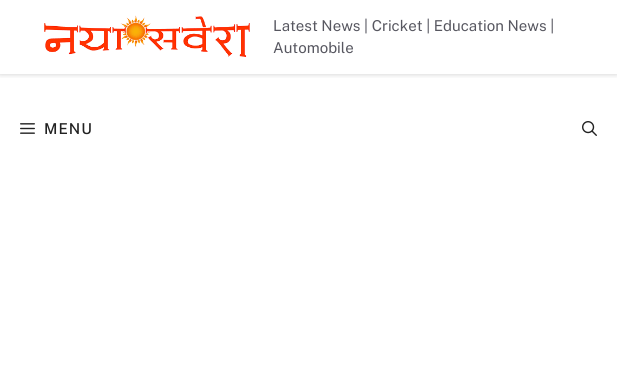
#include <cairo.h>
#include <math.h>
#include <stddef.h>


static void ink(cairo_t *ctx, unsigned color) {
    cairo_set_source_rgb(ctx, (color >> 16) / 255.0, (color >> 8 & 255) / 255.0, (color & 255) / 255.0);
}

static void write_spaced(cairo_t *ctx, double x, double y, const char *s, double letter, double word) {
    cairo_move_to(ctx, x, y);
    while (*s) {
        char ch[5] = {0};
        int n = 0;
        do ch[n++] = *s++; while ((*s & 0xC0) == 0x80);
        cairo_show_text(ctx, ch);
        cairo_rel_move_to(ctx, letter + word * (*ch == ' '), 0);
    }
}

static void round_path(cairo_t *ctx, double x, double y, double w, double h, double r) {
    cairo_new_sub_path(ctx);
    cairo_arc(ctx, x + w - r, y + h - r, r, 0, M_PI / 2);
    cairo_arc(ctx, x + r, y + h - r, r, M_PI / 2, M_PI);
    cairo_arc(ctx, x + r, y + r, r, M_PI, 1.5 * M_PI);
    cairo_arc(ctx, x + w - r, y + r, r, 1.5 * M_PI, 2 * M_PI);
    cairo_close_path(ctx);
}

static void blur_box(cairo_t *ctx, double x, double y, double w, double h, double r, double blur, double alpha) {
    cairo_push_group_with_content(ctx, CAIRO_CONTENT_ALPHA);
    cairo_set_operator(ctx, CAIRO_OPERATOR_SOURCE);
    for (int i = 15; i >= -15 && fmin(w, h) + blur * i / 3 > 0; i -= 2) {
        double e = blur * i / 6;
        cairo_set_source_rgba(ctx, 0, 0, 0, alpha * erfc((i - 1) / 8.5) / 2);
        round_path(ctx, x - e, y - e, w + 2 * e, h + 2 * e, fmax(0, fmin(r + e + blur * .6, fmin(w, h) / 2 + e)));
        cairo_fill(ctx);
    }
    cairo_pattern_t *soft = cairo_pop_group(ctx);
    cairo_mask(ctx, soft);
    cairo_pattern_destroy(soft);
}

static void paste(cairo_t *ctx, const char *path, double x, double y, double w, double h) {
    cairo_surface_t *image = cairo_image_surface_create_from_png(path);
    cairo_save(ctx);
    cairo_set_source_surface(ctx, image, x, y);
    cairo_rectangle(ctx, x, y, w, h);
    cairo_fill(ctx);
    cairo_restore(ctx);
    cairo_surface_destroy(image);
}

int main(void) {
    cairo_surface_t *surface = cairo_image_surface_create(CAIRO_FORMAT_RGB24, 617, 385);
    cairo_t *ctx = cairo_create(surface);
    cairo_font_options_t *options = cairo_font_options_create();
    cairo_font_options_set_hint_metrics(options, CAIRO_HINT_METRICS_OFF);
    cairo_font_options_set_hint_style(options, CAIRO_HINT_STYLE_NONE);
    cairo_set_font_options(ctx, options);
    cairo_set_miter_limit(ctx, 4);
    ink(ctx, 0xFFFFFF);
    cairo_paint(ctx);
    cairo_save(ctx);
    cairo_rectangle(ctx, 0, 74, 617, 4);
    cairo_clip(ctx);
    ink(ctx, 0x252525);
    blur_box(ctx, 0, 0, 617, 74, 0, 3, 0.24);
    cairo_restore(ctx);
    paste(ctx, "media/1.png", 44, 15, 206, 42);
    cairo_select_font_face(ctx, "Public Sans", CAIRO_FONT_SLANT_NORMAL, CAIRO_FONT_WEIGHT_NORMAL);
    cairo_set_font_size(ctx, 15);
    ink(ctx, 0x575760);
    cairo_move_to(ctx, 273, 31);
    cairo_show_text(ctx, "Latest News | Cricket | Education News |");
    cairo_move_to(ctx, 273, 53);
    cairo_show_text(ctx, "Automobile");
    paste(ctx, "media/2.png", 20, 123, 15, 11);
    cairo_select_font_face(ctx, "Public Sans Medium", CAIRO_FONT_SLANT_NORMAL, CAIRO_FONT_WEIGHT_NORMAL);
    ink(ctx, 0x222222);
    write_spaced(ctx, 44, 134, "MENU", 1, 0);
    paste(ctx, "media/3.png", 582, 121, 15, 15);
    cairo_surface_write_to_png(surface, "image.png");
    cairo_font_options_destroy(options);
    cairo_destroy(ctx);
    cairo_surface_destroy(surface);
    return 0;
}
